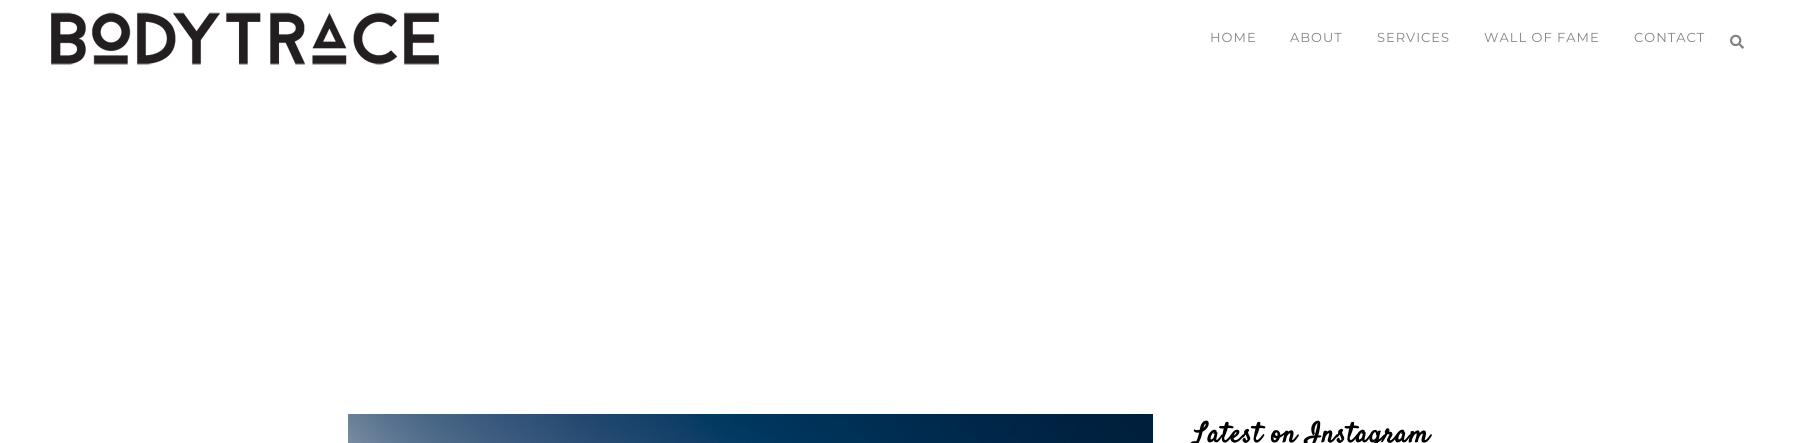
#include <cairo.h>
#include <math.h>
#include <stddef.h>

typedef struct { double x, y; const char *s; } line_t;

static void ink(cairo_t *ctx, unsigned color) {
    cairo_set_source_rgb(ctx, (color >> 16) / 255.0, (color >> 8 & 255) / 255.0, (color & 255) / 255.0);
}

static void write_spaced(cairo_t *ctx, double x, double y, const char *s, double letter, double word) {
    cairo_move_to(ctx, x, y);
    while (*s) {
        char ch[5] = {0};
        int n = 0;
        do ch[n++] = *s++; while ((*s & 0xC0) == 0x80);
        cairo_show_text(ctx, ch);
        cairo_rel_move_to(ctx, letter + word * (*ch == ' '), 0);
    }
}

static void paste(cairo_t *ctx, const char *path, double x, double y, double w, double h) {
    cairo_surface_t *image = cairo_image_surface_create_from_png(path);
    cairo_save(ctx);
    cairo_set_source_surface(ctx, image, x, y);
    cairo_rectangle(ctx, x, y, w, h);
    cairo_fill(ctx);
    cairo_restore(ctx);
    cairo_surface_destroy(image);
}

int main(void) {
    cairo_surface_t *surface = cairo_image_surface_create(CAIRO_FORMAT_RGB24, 1795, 443);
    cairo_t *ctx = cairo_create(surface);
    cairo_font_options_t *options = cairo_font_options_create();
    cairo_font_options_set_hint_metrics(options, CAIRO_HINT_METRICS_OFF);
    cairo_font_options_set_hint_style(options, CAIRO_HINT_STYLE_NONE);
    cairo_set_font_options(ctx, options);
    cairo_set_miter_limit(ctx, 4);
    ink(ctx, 0xFFFFFF);
    cairo_paint(ctx);
    paste(ctx, "media/1.png", 51, 12, 388, 53);
    cairo_select_font_face(ctx, "Montserrat", CAIRO_FONT_SLANT_NORMAL, CAIRO_FONT_WEIGHT_NORMAL);
    cairo_set_font_size(ctx, 13);
    ink(ctx, 0x848383);
    {
        static const line_t items[] = {
            {1210, 42, "HOME"},
            {1290, 42, "ABOUT"},
            {1377, 42, "SERVICES"},
            {1484, 42, "WALL OF FAME"},
            {1634, 42, "CONTACT"},
        };
        for (size_t i = 0; i < sizeof items / sizeof *items; i++) {
            write_spaced(ctx, items[i].x, items[i].y, items[i].s, 1, 0);
        }
    }
    paste(ctx, "media/2.png", 1730, 34, 14, 15);
    paste(ctx, "media/3.png", 348, 414, 805, 29);
    cairo_select_font_face(ctx, "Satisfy", CAIRO_FONT_SLANT_NORMAL, CAIRO_FONT_WEIGHT_BOLD);
    cairo_set_font_size(ctx, 28);
    ink(ctx, 0x000000);
    write_spaced(ctx, 1193, 442, "Latest on Instagram", 1, 0);
    cairo_surface_write_to_png(surface, "image.png");
    cairo_font_options_destroy(options);
    cairo_destroy(ctx);
    cairo_surface_destroy(surface);
    return 0;
}
